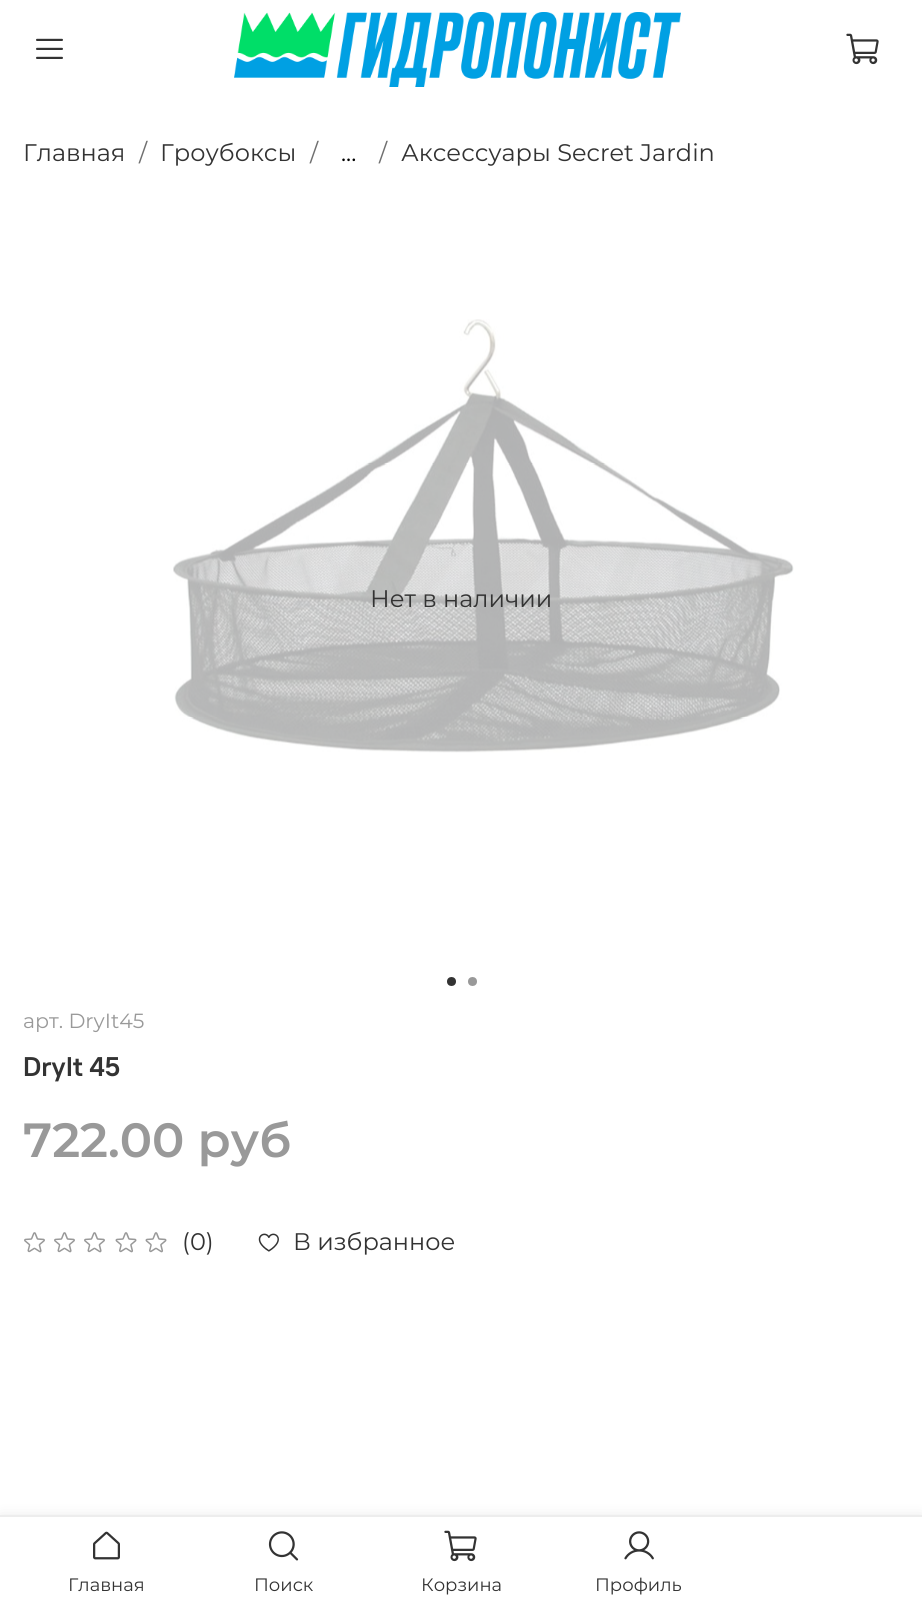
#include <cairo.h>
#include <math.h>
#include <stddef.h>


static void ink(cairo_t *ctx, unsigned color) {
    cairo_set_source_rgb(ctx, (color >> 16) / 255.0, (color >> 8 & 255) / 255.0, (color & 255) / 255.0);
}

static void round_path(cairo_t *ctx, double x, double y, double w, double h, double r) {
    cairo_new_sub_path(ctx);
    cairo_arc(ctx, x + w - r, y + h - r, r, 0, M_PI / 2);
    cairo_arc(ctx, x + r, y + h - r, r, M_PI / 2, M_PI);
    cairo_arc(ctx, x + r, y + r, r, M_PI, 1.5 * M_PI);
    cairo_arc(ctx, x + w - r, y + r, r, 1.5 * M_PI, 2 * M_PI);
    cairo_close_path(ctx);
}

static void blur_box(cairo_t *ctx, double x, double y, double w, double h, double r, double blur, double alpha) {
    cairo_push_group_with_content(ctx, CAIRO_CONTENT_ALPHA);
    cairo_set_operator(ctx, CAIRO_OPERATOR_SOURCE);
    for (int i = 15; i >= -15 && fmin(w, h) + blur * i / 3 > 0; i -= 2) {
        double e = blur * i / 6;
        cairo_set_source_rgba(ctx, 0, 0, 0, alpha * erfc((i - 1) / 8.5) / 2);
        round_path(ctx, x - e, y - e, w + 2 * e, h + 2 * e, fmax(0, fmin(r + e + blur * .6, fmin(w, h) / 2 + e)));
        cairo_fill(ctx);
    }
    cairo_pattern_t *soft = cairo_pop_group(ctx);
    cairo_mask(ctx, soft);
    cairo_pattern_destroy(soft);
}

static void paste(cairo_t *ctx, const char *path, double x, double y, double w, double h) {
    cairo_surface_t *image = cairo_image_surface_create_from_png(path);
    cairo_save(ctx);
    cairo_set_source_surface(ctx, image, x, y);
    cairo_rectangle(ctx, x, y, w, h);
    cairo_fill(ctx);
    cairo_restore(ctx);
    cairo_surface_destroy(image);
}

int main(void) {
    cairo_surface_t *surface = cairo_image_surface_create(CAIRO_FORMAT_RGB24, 922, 1607);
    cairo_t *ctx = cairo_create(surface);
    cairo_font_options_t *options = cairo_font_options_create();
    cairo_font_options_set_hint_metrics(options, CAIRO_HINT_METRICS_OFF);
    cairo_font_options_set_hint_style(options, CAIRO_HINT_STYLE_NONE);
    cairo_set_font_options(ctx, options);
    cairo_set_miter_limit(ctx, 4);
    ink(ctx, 0xFFFFFF);
    cairo_paint(ctx);
    paste(ctx, "media/1.png", 36, 38, 27, 21);
    paste(ctx, "media/2.png", 234, 12, 447, 75);
    paste(ctx, "media/3.png", 846, 33, 33, 32);
    cairo_select_font_face(ctx, "Montserrat", CAIRO_FONT_SLANT_NORMAL, CAIRO_FONT_WEIGHT_NORMAL);
    cairo_set_font_size(ctx, 24);
    ink(ctx, 0x333333);
    cairo_move_to(ctx, 23, 161);
    cairo_show_text(ctx, "Главная");
    ink(ctx, 0x707070);
    cairo_move_to(ctx, 139, 161);
    cairo_show_text(ctx, "/");
    ink(ctx, 0x333333);
    cairo_move_to(ctx, 160, 161);
    cairo_show_text(ctx, "Гроубоксы");
    ink(ctx, 0x707070);
    cairo_move_to(ctx, 310, 161);
    cairo_show_text(ctx, "/");
    ink(ctx, 0x000000);
    cairo_move_to(ctx, 341, 161);
    cairo_show_text(ctx, "...");
    ink(ctx, 0x707070);
    cairo_move_to(ctx, 379, 161);
    cairo_show_text(ctx, "/");
    ink(ctx, 0x333333);
    cairo_move_to(ctx, 401, 161);
    cairo_show_text(ctx, "Аксессуары Secret Jardin");
    paste(ctx, "media/4.png", 173, 319, 621, 434);
    cairo_arc(ctx, 451.5, 981.5, 4.5, 0, 2 * M_PI);
    cairo_fill(ctx);
    ink(ctx, 0x999999);
    cairo_arc(ctx, 472.5, 981.5, 4.5, 0, 2 * M_PI);
    cairo_fill(ctx);
    ink(ctx, 0x333333);
    cairo_move_to(ctx, 370, 607);
    cairo_show_text(ctx, "Нет в наличии");
    cairo_set_font_size(ctx, 20.5);
    ink(ctx, 0x999999);
    cairo_move_to(ctx, 23, 1028);
    cairo_show_text(ctx, "арт. DryIt45");
    cairo_select_font_face(ctx, "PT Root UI", CAIRO_FONT_SLANT_NORMAL, CAIRO_FONT_WEIGHT_BOLD);
    cairo_set_font_size(ctx, 27);
    ink(ctx, 0x333333);
    cairo_move_to(ctx, 23, 1076);
    cairo_show_text(ctx, "DryIt 45");
    cairo_select_font_face(ctx, "Montserrat SemiBold", CAIRO_FONT_SLANT_NORMAL, CAIRO_FONT_WEIGHT_NORMAL);
    cairo_set_font_size(ctx, 48);
    ink(ctx, 0x999999);
    cairo_move_to(ctx, 23, 1157);
    cairo_show_text(ctx, "722.00 руб");
    paste(ctx, "media/5.png", 24, 1232, 21, 21);
    paste(ctx, "media/5.png", 54, 1232, 21, 21);
    paste(ctx, "media/5.png", 84, 1232, 21, 21);
    paste(ctx, "media/6.png", 115, 1232, 22, 21);
    paste(ctx, "media/6.png", 145, 1232, 22, 21);
    cairo_select_font_face(ctx, "Montserrat", CAIRO_FONT_SLANT_NORMAL, CAIRO_FONT_WEIGHT_NORMAL);
    cairo_set_font_size(ctx, 24);
    ink(ctx, 0x333333);
    cairo_move_to(ctx, 182, 1250);
    cairo_show_text(ctx, "(0)");
    paste(ctx, "media/7.png", 258, 1233, 21, 19);
    cairo_move_to(ctx, 293, 1250);
    cairo_show_text(ctx, "В избранное");
    ink(ctx, 0x000000);
    blur_box(ctx, 0, 1518, 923, 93, 0, 7.5, 0.12);
    ink(ctx, 0xFFFFFF);
    cairo_rectangle(ctx, 0, 1517, 922, 90);
    cairo_fill(ctx);
    ink(ctx, 0xEDEDED);
    cairo_rectangle(ctx, 0, 1515, 922, 2);
    cairo_fill(ctx);
    paste(ctx, "media/8.png", 93, 1531, 27, 29);
    cairo_set_font_size(ctx, 18);
    ink(ctx, 0x333333);
    cairo_move_to(ctx, 68, 1591);
    cairo_show_text(ctx, "Главная");
    paste(ctx, "media/9.png", 268, 1531, 31, 30);
    cairo_move_to(ctx, 254, 1591);
    cairo_show_text(ctx, "Поиск");
    paste(ctx, "media/3.png", 444, 1530, 33, 32);
    cairo_move_to(ctx, 421, 1591);
    cairo_show_text(ctx, "Корзина");
    paste(ctx, "media/10.png", 624, 1531, 30, 29);
    cairo_move_to(ctx, 595, 1591);
    cairo_show_text(ctx, "Профиль");
    cairo_surface_write_to_png(surface, "image.png");
    cairo_font_options_destroy(options);
    cairo_destroy(ctx);
    cairo_surface_destroy(surface);
    return 0;
}
